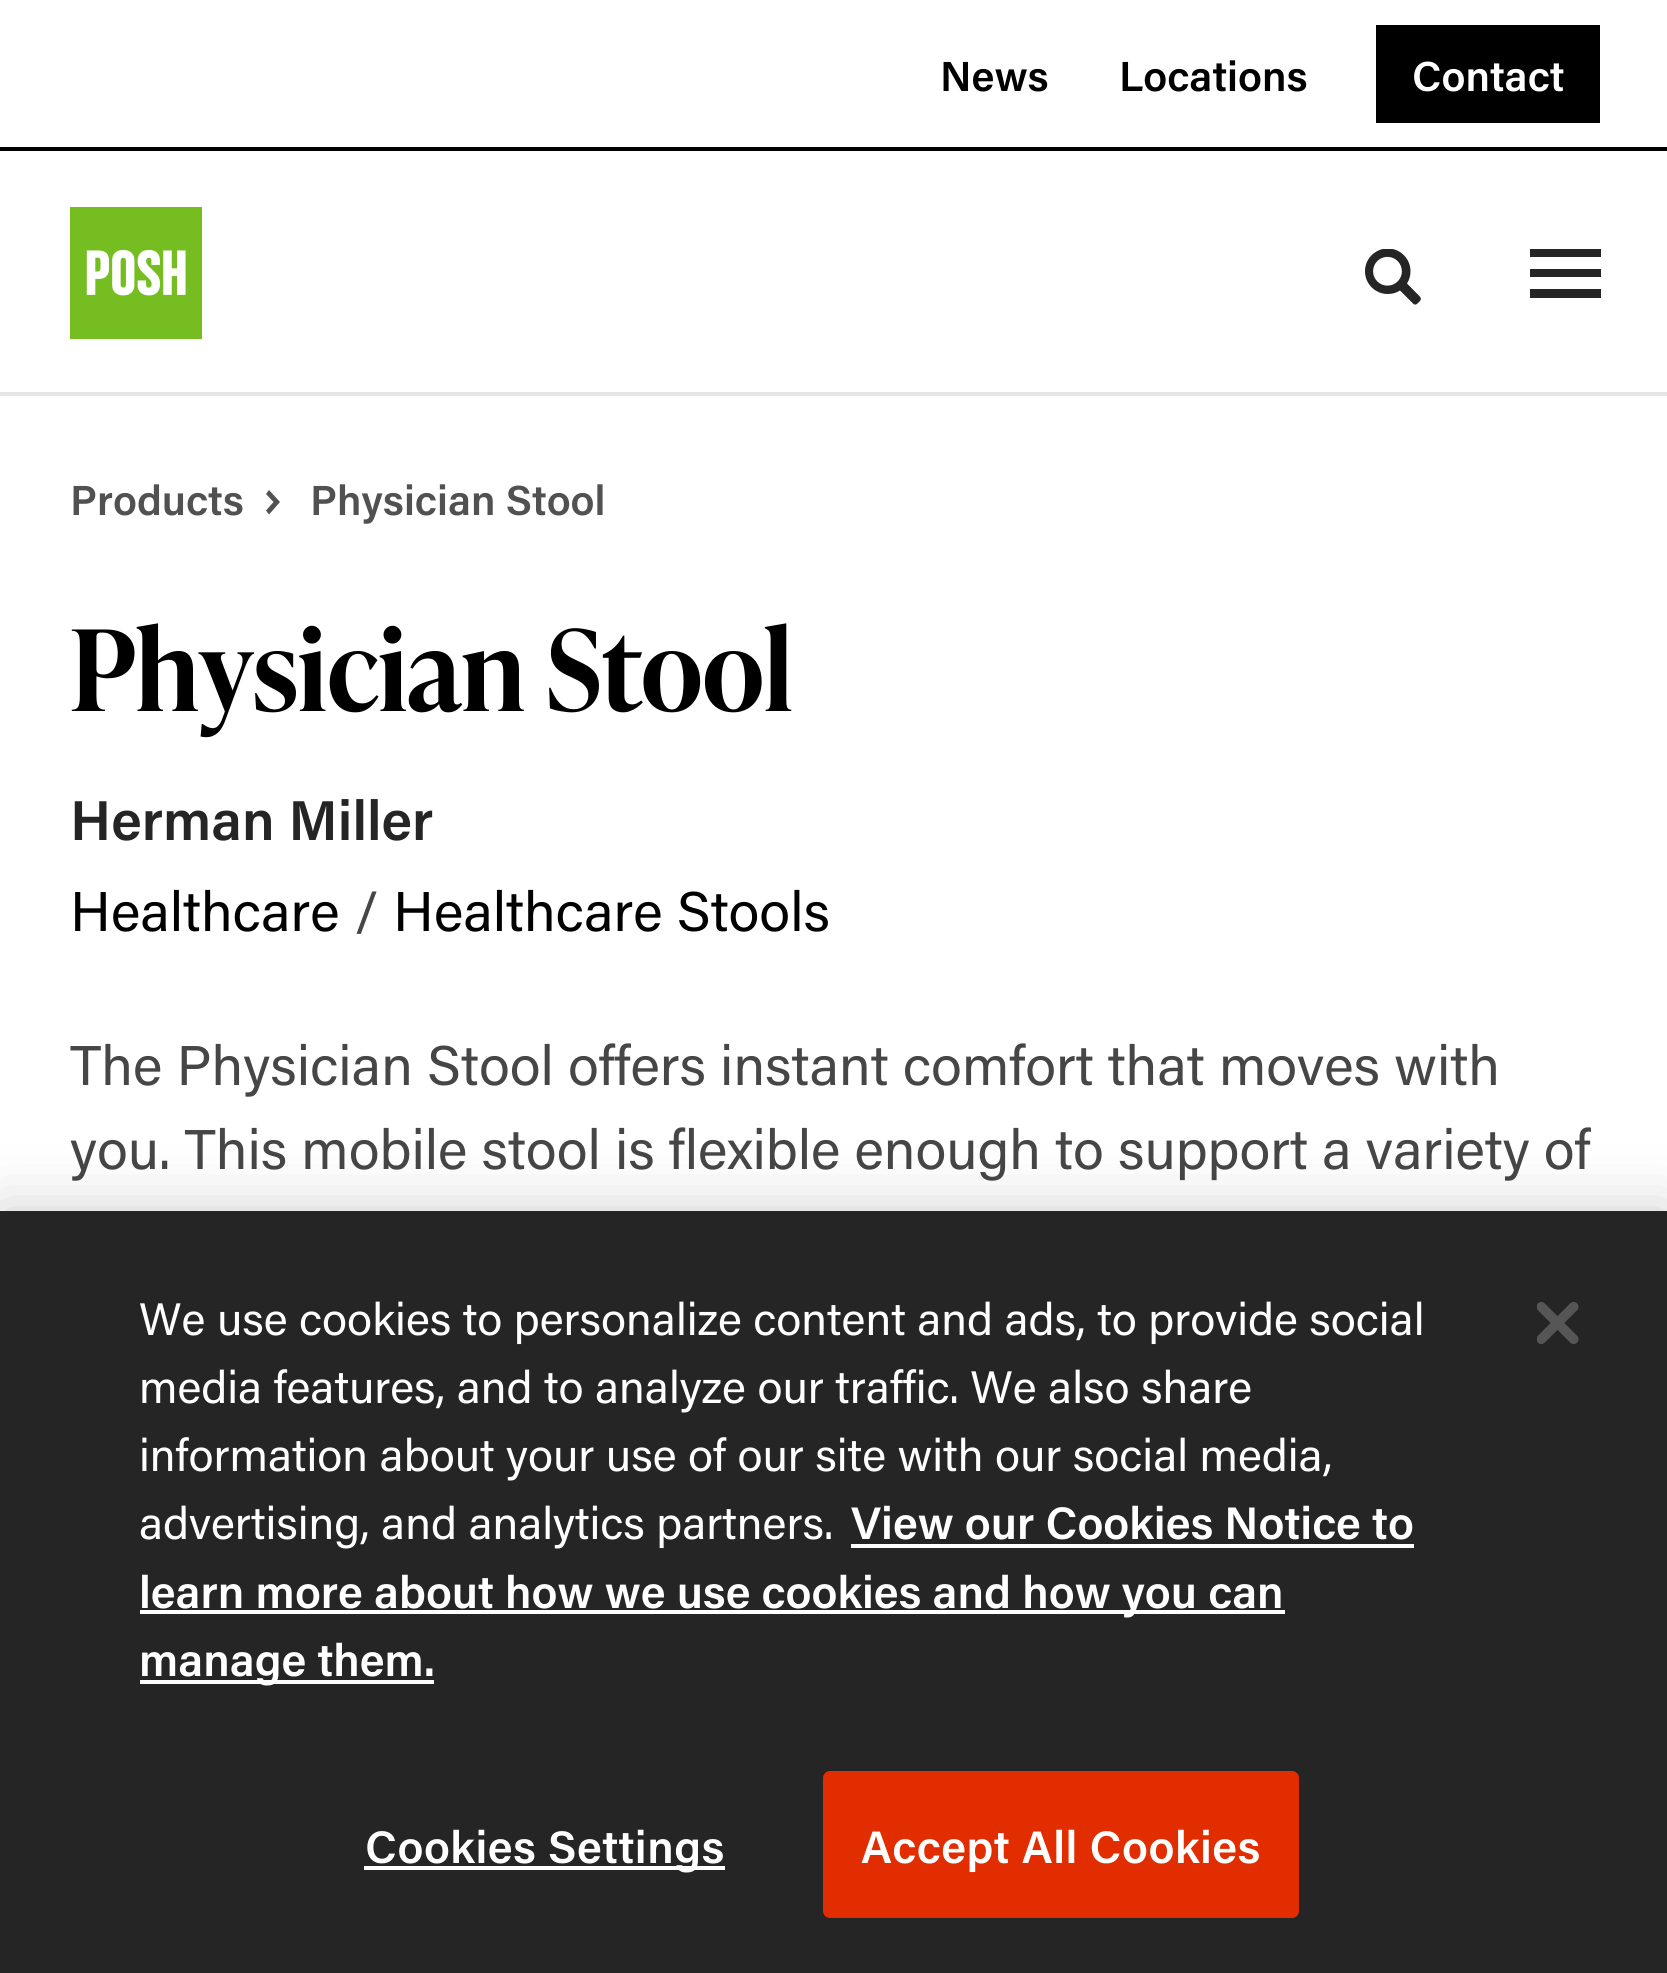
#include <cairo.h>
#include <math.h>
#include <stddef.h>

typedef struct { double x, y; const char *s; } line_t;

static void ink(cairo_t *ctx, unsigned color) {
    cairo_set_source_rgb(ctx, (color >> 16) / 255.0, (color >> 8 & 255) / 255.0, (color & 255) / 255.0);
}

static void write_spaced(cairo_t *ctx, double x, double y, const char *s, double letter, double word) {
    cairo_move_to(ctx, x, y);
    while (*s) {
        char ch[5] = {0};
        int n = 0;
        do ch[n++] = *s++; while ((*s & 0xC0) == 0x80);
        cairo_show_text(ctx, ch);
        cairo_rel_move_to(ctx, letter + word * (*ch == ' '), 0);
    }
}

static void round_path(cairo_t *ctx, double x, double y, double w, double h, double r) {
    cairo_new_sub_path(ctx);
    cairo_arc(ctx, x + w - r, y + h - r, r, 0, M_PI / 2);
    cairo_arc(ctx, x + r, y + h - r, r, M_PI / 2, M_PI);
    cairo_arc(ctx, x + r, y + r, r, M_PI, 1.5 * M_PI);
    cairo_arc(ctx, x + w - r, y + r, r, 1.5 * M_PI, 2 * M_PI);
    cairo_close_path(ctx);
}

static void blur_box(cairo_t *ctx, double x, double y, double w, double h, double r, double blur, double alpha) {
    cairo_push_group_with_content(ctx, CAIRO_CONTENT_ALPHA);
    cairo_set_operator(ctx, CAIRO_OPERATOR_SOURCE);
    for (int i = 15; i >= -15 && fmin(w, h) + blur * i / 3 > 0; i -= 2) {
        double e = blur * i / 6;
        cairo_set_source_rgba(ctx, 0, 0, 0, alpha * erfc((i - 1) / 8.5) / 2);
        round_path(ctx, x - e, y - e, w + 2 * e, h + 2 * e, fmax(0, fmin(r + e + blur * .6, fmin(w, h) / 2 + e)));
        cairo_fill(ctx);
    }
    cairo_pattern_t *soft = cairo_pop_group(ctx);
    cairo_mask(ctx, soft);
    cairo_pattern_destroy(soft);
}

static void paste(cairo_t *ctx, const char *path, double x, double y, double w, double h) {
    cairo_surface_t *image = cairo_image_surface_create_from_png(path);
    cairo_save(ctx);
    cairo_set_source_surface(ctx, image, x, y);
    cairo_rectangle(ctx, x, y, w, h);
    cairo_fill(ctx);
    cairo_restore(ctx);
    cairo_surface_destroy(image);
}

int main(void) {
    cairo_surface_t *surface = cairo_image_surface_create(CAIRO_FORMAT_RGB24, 1667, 1973);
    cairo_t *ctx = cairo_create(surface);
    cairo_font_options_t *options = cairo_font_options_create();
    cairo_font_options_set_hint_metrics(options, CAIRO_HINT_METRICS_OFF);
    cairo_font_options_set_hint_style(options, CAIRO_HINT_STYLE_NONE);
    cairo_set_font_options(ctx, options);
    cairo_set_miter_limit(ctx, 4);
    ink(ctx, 0xFFFFFF);
    cairo_paint(ctx);
    ink(ctx, 0x000000);
    cairo_rectangle(ctx, 0, 147, 1667, 4);
    cairo_fill(ctx);
    cairo_select_font_face(ctx, "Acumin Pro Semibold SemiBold", CAIRO_FONT_SLANT_NORMAL, CAIRO_FONT_WEIGHT_NORMAL);
    cairo_set_font_size(ctx, 42);
    cairo_move_to(ctx, 940, 91);
    cairo_show_text(ctx, "News");
    cairo_move_to(ctx, 1119, 91);
    cairo_show_text(ctx, "Locations");
    cairo_rectangle(ctx, 1376, 25, 224, 98);
    cairo_fill(ctx);
    ink(ctx, 0xFFFFFF);
    cairo_move_to(ctx, 1412, 91);
    cairo_show_text(ctx, "Contact");
    ink(ctx, 0xE6E6E6);
    cairo_rectangle(ctx, 0, 392, 1667, 4);
    cairo_fill(ctx);
    paste(ctx, "media/1.png", 70, 207, 132, 132);
    paste(ctx, "media/2.png", 1365, 249, 56, 56);
    cairo_save(ctx);
    cairo_rectangle(ctx, 1530, 249, 73, 49);
    cairo_clip(ctx);
    ink(ctx, 0x252525);
    cairo_set_fill_rule(ctx, CAIRO_FILL_RULE_EVEN_ODD);
    cairo_new_path(ctx);
    cairo_move_to(ctx, 1528, 298);
    cairo_line_to(ctx, 1601, 298);
    cairo_line_to(ctx, 1601, 289);
    cairo_line_to(ctx, 1528, 289);
    cairo_close_path(ctx);
    cairo_move_to(ctx, 1528, 277);
    cairo_line_to(ctx, 1601, 277);
    cairo_line_to(ctx, 1601, 269);
    cairo_line_to(ctx, 1528, 269);
    cairo_close_path(ctx);
    cairo_move_to(ctx, 1528, 248);
    cairo_line_to(ctx, 1528, 257);
    cairo_line_to(ctx, 1601, 257);
    cairo_line_to(ctx, 1601, 248);
    cairo_close_path(ctx);
    cairo_fill(ctx);
    cairo_restore(ctx);
    ink(ctx, 0x515151);
    cairo_move_to(ctx, 70, 515);
    cairo_show_text(ctx, "Products");
    cairo_set_fill_rule(ctx, CAIRO_FILL_RULE_EVEN_ODD);
    cairo_new_path(ctx);
    cairo_move_to(ctx, 266, 510.5);
    cairo_line_to(ctx, 269, 514.5);
    cairo_line_to(ctx, 280, 502);
    cairo_line_to(ctx, 269, 490);
    cairo_line_to(ctx, 266, 494);
    cairo_line_to(ctx, 273.5, 502);
    cairo_close_path(ctx);
    cairo_fill(ctx);
    cairo_move_to(ctx, 310, 515);
    cairo_show_text(ctx, "Physician Stool");
    cairo_select_font_face(ctx, "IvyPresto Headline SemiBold", CAIRO_FONT_SLANT_NORMAL, CAIRO_FONT_WEIGHT_NORMAL);
    cairo_set_font_size(ctx, 112);
    ink(ctx, 0x000000);
    write_spaced(ctx, 70, 711, "Physician Stool", -0.1, 0);
    cairo_select_font_face(ctx, "Acumin Pro Semibold SemiBold", CAIRO_FONT_SLANT_NORMAL, CAIRO_FONT_WEIGHT_NORMAL);
    cairo_set_font_size(ctx, 56);
    ink(ctx, 0x252525);
    cairo_move_to(ctx, 70, 840);
    cairo_show_text(ctx, "Herman Miller");
    cairo_select_font_face(ctx, "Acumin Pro", CAIRO_FONT_SLANT_NORMAL, CAIRO_FONT_WEIGHT_NORMAL);
    ink(ctx, 0x000000);
    cairo_move_to(ctx, 70, 931);
    cairo_show_text(ctx, "Healthcare");
    ink(ctx, 0x464646);
    cairo_move_to(ctx, 354, 931);
    cairo_show_text(ctx, "/");
    ink(ctx, 0x000000);
    cairo_move_to(ctx, 393, 931);
    cairo_show_text(ctx, "Healthcare Stools");
    ink(ctx, 0x464646);
    cairo_move_to(ctx, 70, 1085);
    cairo_show_text(ctx, "The Physician Stool offers instant comfort that moves with");
    cairo_move_to(ctx, 70, 1169);
    cairo_show_text(ctx, "you. This mobile stool is flexible enough to support a variety of");
    ink(ctx, 0x000000);
    blur_box(ctx, 0, 1211, 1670, 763, 0, 31.5, 0.2);
    ink(ctx, 0x252525);
    cairo_rectangle(ctx, 0, 1211, 1667, 762);
    cairo_fill(ctx);
    cairo_set_font_size(ctx, 45.5);
    ink(ctx, 0xFFFFFF);
    {
        static const line_t items[] = {
            {139, 1335, "We use cookies to personalize content and ads, to provide social"},
            {139, 1403, "media features, and to analyze our traffic. We also share"},
            {139, 1471, "information about your use of our site with our social media,"},
            {139, 1539, "advertising, and analytics partners."},
        };
        for (size_t i = 0; i < sizeof items / sizeof *items; i++) {
            cairo_move_to(ctx, items[i].x, items[i].y);
            cairo_show_text(ctx, items[i].s);
        }
    }
    cairo_select_font_face(ctx, "Acumin Pro Semibold SemiBold", CAIRO_FONT_SLANT_NORMAL, CAIRO_FONT_WEIGHT_NORMAL);
    cairo_move_to(ctx, 851, 1539);
    cairo_show_text(ctx, "View our Cookies Notice to");
    cairo_rectangle(ctx, 851, 1544, 563, 4);
    cairo_fill(ctx);
    cairo_rectangle(ctx, 140, 1610, 1145, 4);
    cairo_fill(ctx);
    cairo_move_to(ctx, 139, 1608);
    cairo_show_text(ctx, "learn more about how we use cookies and how you can");
    cairo_rectangle(ctx, 140, 1680, 294, 4);
    cairo_fill(ctx);
    cairo_move_to(ctx, 139, 1676);
    cairo_show_text(ctx, "manage them.");
    cairo_rectangle(ctx, 364, 1866, 361, 4);
    cairo_fill(ctx);
    write_spaced(ctx, 365, 1863, "Cookies Settings", 0.5, 0);
    ink(ctx, 0xE22D00);
    round_path(ctx, 825, 1773, 472, 143, 5);
    cairo_fill_preserve(ctx);
    cairo_set_line_width(ctx, 4);
    cairo_stroke(ctx);
    ink(ctx, 0xFFFFFF);
    write_spaced(ctx, 861, 1863, "Accept All Cookies", 0.5, 0);
    paste(ctx, "media/3.png", 1537, 1302, 42, 42);
    cairo_surface_write_to_png(surface, "image.png");
    cairo_font_options_destroy(options);
    cairo_destroy(ctx);
    cairo_surface_destroy(surface);
    return 0;
}
